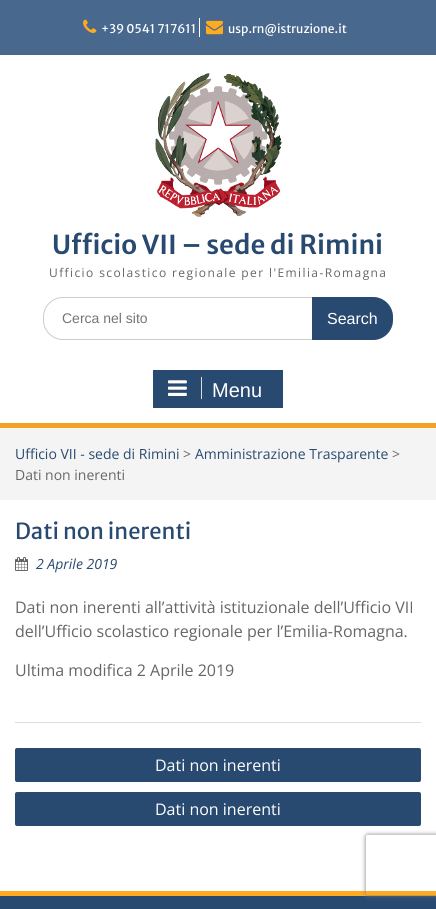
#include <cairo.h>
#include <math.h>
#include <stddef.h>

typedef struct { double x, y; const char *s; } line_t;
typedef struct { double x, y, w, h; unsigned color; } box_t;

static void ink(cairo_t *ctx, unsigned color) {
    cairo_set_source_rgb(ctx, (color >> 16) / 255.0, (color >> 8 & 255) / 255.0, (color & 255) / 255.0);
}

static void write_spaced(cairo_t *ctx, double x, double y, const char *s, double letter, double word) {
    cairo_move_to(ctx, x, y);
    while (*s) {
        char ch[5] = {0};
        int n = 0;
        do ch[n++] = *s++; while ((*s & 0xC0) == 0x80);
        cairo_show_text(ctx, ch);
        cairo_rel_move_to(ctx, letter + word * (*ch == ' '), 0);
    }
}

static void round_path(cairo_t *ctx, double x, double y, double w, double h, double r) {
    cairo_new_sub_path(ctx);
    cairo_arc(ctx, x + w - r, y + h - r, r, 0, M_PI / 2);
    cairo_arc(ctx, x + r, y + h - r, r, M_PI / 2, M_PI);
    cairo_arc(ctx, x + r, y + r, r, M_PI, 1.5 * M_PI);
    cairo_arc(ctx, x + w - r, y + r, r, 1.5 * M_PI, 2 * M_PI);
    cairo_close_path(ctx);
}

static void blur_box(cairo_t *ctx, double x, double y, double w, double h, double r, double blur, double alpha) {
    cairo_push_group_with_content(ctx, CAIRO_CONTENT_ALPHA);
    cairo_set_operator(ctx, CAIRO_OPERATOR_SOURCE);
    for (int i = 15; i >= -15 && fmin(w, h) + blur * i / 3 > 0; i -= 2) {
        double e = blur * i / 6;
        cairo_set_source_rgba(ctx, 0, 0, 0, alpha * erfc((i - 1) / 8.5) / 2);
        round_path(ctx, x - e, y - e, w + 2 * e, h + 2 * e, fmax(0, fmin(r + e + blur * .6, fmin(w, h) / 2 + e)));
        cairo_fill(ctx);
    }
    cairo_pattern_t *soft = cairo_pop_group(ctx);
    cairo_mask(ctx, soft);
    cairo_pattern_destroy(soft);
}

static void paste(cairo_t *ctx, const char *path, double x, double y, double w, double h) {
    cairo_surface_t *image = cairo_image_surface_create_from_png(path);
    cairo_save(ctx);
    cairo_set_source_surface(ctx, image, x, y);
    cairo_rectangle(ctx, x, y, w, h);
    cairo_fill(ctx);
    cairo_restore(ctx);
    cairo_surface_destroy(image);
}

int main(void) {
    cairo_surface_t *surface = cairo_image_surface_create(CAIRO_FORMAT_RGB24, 436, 909);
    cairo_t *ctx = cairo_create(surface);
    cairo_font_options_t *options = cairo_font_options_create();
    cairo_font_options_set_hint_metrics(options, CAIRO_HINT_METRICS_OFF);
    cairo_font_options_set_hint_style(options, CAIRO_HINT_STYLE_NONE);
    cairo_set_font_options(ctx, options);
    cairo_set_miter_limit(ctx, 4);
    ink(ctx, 0xFFFFFF);
    cairo_paint(ctx);
    ink(ctx, 0x49688E);
    cairo_rectangle(ctx, 0, 0, 436, 55);
    cairo_fill(ctx);
    paste(ctx, "media/1.png", 83, 19, 14, 14);
    cairo_select_font_face(ctx, "Merriweather Sans", CAIRO_FONT_SLANT_NORMAL, CAIRO_FONT_WEIGHT_NORMAL);
    cairo_set_font_size(ctx, 12);
    ink(ctx, 0xFFFFFF);
    cairo_move_to(ctx, 101, 33);
    cairo_show_text(ctx, "+39 0541 717611");
    cairo_rectangle(ctx, 199, 18, 1, 19);
    cairo_fill(ctx);
    paste(ctx, "media/2.png", 206, 20, 17, 15);
    cairo_move_to(ctx, 228, 33);
    cairo_show_text(ctx, "usp.rn@istruzione.it");
    paste(ctx, "media/3.png", 155, 73, 127, 144);
    cairo_select_font_face(ctx, "Merriweather Sans SemiBold", CAIRO_FONT_SLANT_NORMAL, CAIRO_FONT_WEIGHT_NORMAL);
    cairo_set_font_size(ctx, 26);
    ink(ctx, 0x294A70);
    cairo_move_to(ctx, 52, 254);
    cairo_show_text(ctx, "Ufficio VII – sede di Rimini");
    cairo_select_font_face(ctx, "Open Sans", CAIRO_FONT_SLANT_NORMAL, CAIRO_FONT_WEIGHT_NORMAL);
    cairo_set_font_size(ctx, 12);
    ink(ctx, 0x666666);
    write_spaced(ctx, 49, 277, "Ufficio scolastico regionale per l'Emilia-Romagna", 1.4, 0);
    round_path(ctx, 43.5, 297.5, 349, 42, 19.5);
    ink(ctx, 0xCCCCCC);
    cairo_set_line_width(ctx, 1);
    cairo_stroke(ctx);
    cairo_select_font_face(ctx, "Liberation Sans", CAIRO_FONT_SLANT_NORMAL, CAIRO_FONT_WEIGHT_NORMAL);
    cairo_set_font_size(ctx, 14);
    ink(ctx, 0x757575);
    cairo_move_to(ctx, 62, 323);
    cairo_show_text(ctx, "Cerca nel sito");
    ink(ctx, 0x294A70);
    cairo_new_path(ctx);
    cairo_move_to(ctx, 312, 297);
    cairo_line_to(ctx, 373, 297);
    cairo_curve_to(ctx, 384, 297, 393, 306, 393, 317);
    cairo_line_to(ctx, 393, 320);
    cairo_curve_to(ctx, 393, 331, 384, 340, 373, 340);
    cairo_line_to(ctx, 312, 340);
    cairo_close_path(ctx);
    cairo_fill(ctx);
    cairo_set_font_size(ctx, 16);
    ink(ctx, 0xFFFFFF);
    cairo_move_to(ctx, 327, 324);
    cairo_show_text(ctx, "Search");
    {
        static const box_t items[] = {
            {0, 423, 436, 5, 0xF4A024},
            {153, 370, 130, 38, 0x294A70},
            {201, 377, 1, 22, 0xDDDDDD},
        };
        for (size_t i = 0; i < sizeof items / sizeof *items; i++) {
            ink(ctx, items[i].color);
            cairo_rectangle(ctx, items[i].x, items[i].y, items[i].w, items[i].h);
            cairo_fill(ctx);
        }
    }
    paste(ctx, "media/4.png", 168, 380, 19, 16);
    cairo_set_font_size(ctx, 20);
    ink(ctx, 0xFFFFFF);
    cairo_move_to(ctx, 212, 397);
    cairo_show_text(ctx, "Menu");
    ink(ctx, 0xF4F4F4);
    cairo_rectangle(ctx, 0, 428, 436, 72);
    cairo_fill(ctx);
    cairo_select_font_face(ctx, "Open Sans", CAIRO_FONT_SLANT_NORMAL, CAIRO_FONT_WEIGHT_NORMAL);
    cairo_set_font_size(ctx, 14);
    ink(ctx, 0x294A70);
    cairo_move_to(ctx, 15, 459);
    cairo_show_text(ctx, "Ufficio VII - sede di Rimini");
    ink(ctx, 0x666666);
    cairo_move_to(ctx, 183, 459);
    cairo_show_text(ctx, ">");
    ink(ctx, 0x294A70);
    cairo_move_to(ctx, 195, 459);
    cairo_show_text(ctx, "Amministrazione Trasparente");
    ink(ctx, 0x666666);
    cairo_move_to(ctx, 392, 459);
    cairo_show_text(ctx, ">");
    cairo_move_to(ctx, 15, 480);
    cairo_show_text(ctx, "Dati non inerenti");
    ink(ctx, 0xDDDDDD);
    cairo_rectangle(ctx, 15, 722, 406, 1);
    cairo_fill(ctx);
    cairo_select_font_face(ctx, "Merriweather Sans", CAIRO_FONT_SLANT_NORMAL, CAIRO_FONT_WEIGHT_NORMAL);
    cairo_set_font_size(ctx, 22);
    ink(ctx, 0x294A70);
    cairo_move_to(ctx, 15, 539);
    cairo_show_text(ctx, "Dati non inerenti");
    paste(ctx, "media/5.png", 15, 557, 13, 14);
    cairo_select_font_face(ctx, "Open Sans", CAIRO_FONT_SLANT_ITALIC, CAIRO_FONT_WEIGHT_NORMAL);
    cairo_set_font_size(ctx, 14);
    cairo_move_to(ctx, 36, 569);
    cairo_show_text(ctx, "2 Aprile 2019");
    cairo_select_font_face(ctx, "Open Sans", CAIRO_FONT_SLANT_NORMAL, CAIRO_FONT_WEIGHT_NORMAL);
    cairo_set_font_size(ctx, 16);
    ink(ctx, 0x666666);
    {
        static const line_t items[] = {
            {15, 613, "Dati non inerenti all’attività istituzionale dell’Ufficio VII"},
            {15, 637, "dell’Ufficio scolastico regionale per l’Emilia-Romagna."},
            {15, 676, "Ultima modifica 2 Aprile 2019"},
        };
        for (size_t i = 0; i < sizeof items / sizeof *items; i++) {
            cairo_move_to(ctx, items[i].x, items[i].y);
            cairo_show_text(ctx, items[i].s);
        }
    }
    ink(ctx, 0x294A70);
    round_path(ctx, 15, 748, 406, 34, 2);
    cairo_fill(ctx);
    ink(ctx, 0xFFFFFF);
    cairo_move_to(ctx, 155, 771);
    cairo_show_text(ctx, "Dati non inerenti");
    ink(ctx, 0x294A70);
    round_path(ctx, 15, 792, 406, 34, 2);
    cairo_fill(ctx);
    ink(ctx, 0xFFFFFF);
    cairo_move_to(ctx, 155, 815);
    cairo_show_text(ctx, "Dati non inerenti");
    ink(ctx, 0x294A70);
    cairo_rectangle(ctx, 0, 896, 436, 13);
    cairo_fill(ctx);
    ink(ctx, 0xFFAB1F);
    cairo_rectangle(ctx, 0, 891, 436, 5);
    cairo_fill(ctx);
    cairo_save(ctx);
    cairo_set_fill_rule(ctx, CAIRO_FILL_RULE_EVEN_ODD);
    cairo_new_path(ctx);
    cairo_move_to(ctx, 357, 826);
    cairo_line_to(ctx, 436, 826);
    cairo_line_to(ctx, 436, 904);
    cairo_line_to(ctx, 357, 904);
    cairo_close_path(ctx);
    cairo_move_to(ctx, 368, 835);
    cairo_line_to(ctx, 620, 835);
    cairo_curve_to(ctx, 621, 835, 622, 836, 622, 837);
    cairo_line_to(ctx, 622, 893);
    cairo_curve_to(ctx, 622, 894, 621, 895, 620, 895);
    cairo_line_to(ctx, 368, 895);
    cairo_curve_to(ctx, 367, 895, 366, 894, 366, 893);
    cairo_line_to(ctx, 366, 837);
    cairo_curve_to(ctx, 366, 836, 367, 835, 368, 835);
    cairo_close_path(ctx);
    cairo_clip(ctx);
    ink(ctx, 0x808080);
    blur_box(ctx, 366, 835, 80, 60, 2, 2.5, 1);
    cairo_restore(ctx);
    cairo_surface_write_to_png(surface, "image.png");
    cairo_font_options_destroy(options);
    cairo_destroy(ctx);
    cairo_surface_destroy(surface);
    return 0;
}
